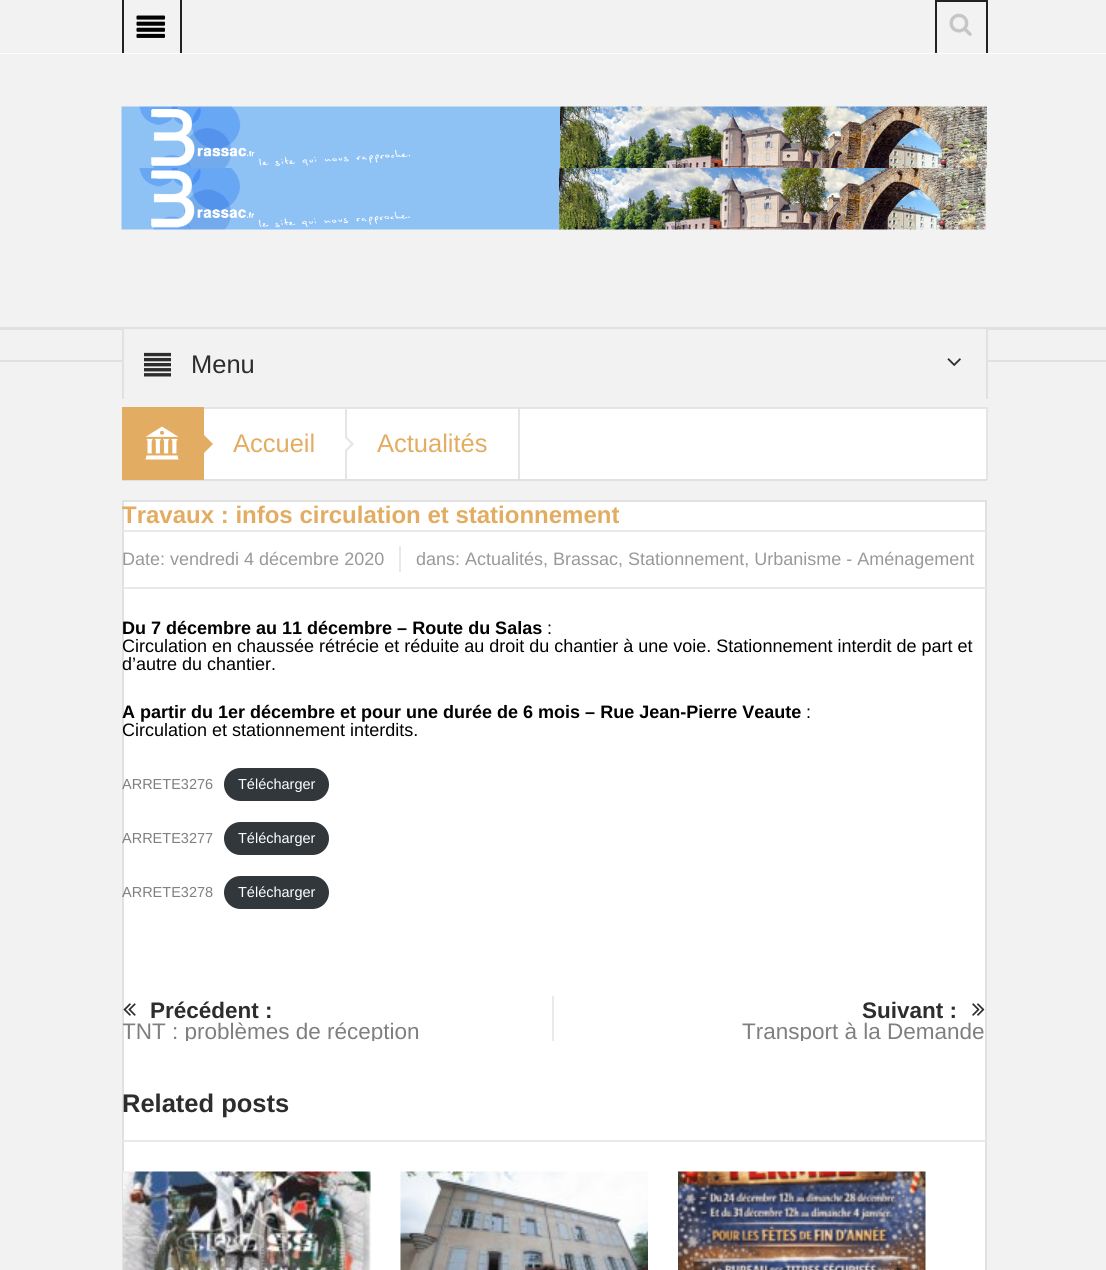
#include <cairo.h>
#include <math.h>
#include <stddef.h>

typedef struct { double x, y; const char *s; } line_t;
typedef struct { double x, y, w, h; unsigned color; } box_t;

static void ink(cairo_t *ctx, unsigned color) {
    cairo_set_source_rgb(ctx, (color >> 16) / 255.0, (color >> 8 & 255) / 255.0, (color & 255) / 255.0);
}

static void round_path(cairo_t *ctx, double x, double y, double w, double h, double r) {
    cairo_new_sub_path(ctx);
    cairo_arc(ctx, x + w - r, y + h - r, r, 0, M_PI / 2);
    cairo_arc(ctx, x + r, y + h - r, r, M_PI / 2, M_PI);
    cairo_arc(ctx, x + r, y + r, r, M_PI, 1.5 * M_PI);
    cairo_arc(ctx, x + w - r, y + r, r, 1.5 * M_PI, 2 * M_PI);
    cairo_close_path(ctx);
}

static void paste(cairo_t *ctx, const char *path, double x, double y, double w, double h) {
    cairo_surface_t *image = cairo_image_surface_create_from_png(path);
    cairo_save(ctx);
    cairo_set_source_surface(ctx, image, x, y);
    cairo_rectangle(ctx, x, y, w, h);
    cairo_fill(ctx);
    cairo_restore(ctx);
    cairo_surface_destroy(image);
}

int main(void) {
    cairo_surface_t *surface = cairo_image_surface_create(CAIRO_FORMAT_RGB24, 1106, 1270);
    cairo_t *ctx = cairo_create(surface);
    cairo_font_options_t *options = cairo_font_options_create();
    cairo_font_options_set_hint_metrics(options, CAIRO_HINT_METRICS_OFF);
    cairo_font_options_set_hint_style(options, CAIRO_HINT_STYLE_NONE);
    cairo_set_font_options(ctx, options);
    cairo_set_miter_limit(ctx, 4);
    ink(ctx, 0xF2F2F2);
    cairo_paint(ctx);
    {
        static const box_t items[] = {
            {0, 53, 1106, 1, 0xFFFFFF},
            {180, 0, 2, 53, 0x222222},
            {122, 0, 2, 53, 0x222222},
        };
        for (size_t i = 0; i < sizeof items / sizeof *items; i++) {
            ink(ctx, items[i].color);
            cairo_rectangle(ctx, items[i].x, items[i].y, items[i].w, items[i].h);
            cairo_fill(ctx);
        }
    }
    paste(ctx, "media/1.png", 136, 15, 29, 23);
    {
        static const box_t items[] = {
            {935, 0, 52, 2, 0x222222},
            {986, 0, 2, 53, 0x222222},
            {935, 0, 2, 53, 0x222222},
        };
        for (size_t i = 0; i < sizeof items / sizeof *items; i++) {
            ink(ctx, items[i].color);
            cairo_rectangle(ctx, items[i].x, items[i].y, items[i].w, items[i].h);
            cairo_fill(ctx);
        }
    }
    paste(ctx, "media/2.png", 949, 13, 23, 23);
    paste(ctx, "media/3.png", 121, 106, 866, 62);
    paste(ctx, "media/4.png", 121, 168, 865, 62);
    {
        static const box_t items[] = {
            {0, 327, 1106, 3, 0xE1E1E1},
            {0, 360, 1106, 2, 0xE1E1E1},
            {124, 329, 862, 33, 0xF2F2F2},
            {986, 329, 2, 70, 0xE1E1E1},
            {122, 329, 2, 70, 0xE1E1E1},
        };
        for (size_t i = 0; i < sizeof items / sizeof *items; i++) {
            ink(ctx, items[i].color);
            cairo_rectangle(ctx, items[i].x, items[i].y, items[i].w, items[i].h);
            cairo_fill(ctx);
        }
    }
    paste(ctx, "media/5.png", 144, 352, 27, 25);
    cairo_select_font_face(ctx, "Liberation Sans", CAIRO_FONT_SLANT_NORMAL, CAIRO_FONT_WEIGHT_NORMAL);
    cairo_set_font_size(ctx, 25.5);
    ink(ctx, 0x2D2D2D);
    cairo_move_to(ctx, 191, 373);
    cairo_show_text(ctx, "Menu");
    paste(ctx, "media/6.png", 947, 358, 14, 8);
    {
        static const box_t items[] = {
            {204, 409, 782, 70, 0xFFFFFF},
            {204, 407, 783, 2, 0xE5E5E5},
            {986, 407, 2, 73, 0xE5E5E5},
            {122, 479, 865, 2, 0xE1E1E1},
            {122, 407, 82, 73, 0xE2AD63},
        };
        for (size_t i = 0; i < sizeof items / sizeof *items; i++) {
            ink(ctx, items[i].color);
            cairo_rectangle(ctx, items[i].x, items[i].y, items[i].w, items[i].h);
            cairo_fill(ctx);
        }
    }
    paste(ctx, "media/7.png", 145, 426, 34, 34);
    cairo_new_path(ctx);
    cairo_move_to(ctx, 204, 453);
    cairo_line_to(ctx, 204, 435);
    cairo_line_to(ctx, 213, 444);
    cairo_close_path(ctx);
    cairo_fill(ctx);
    ink(ctx, 0xE5E5E5);
    cairo_rectangle(ctx, 345, 408, 2, 71);
    cairo_fill(ctx);
    ink(ctx, 0xE2AD63);
    cairo_move_to(ctx, 233, 452);
    cairo_show_text(ctx, "Accueil");
    ink(ctx, 0xE5E5E5);
    cairo_new_path(ctx);
    cairo_move_to(ctx, 345, 453);
    cairo_line_to(ctx, 345, 435);
    cairo_line_to(ctx, 354, 444);
    cairo_close_path(ctx);
    cairo_fill(ctx);
    ink(ctx, 0xFFFFFF);
    cairo_new_path(ctx);
    cairo_move_to(ctx, 345, 450);
    cairo_line_to(ctx, 345, 438);
    cairo_line_to(ctx, 351, 444);
    cairo_close_path(ctx);
    cairo_fill(ctx);
    ink(ctx, 0xE5E5E5);
    cairo_rectangle(ctx, 518, 408, 2, 71);
    cairo_fill(ctx);
    ink(ctx, 0xE2AD63);
    cairo_move_to(ctx, 377, 452);
    cairo_show_text(ctx, "Actualités");
    ink(ctx, 0xFFFFFF);
    cairo_rectangle(ctx, 123, 501, 863, 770);
    cairo_fill_preserve(ctx);
    ink(ctx, 0xE1E1E1);
    cairo_stroke(ctx);
    cairo_select_font_face(ctx, "Liberation Sans", CAIRO_FONT_SLANT_NORMAL, CAIRO_FONT_WEIGHT_BOLD);
    cairo_set_font_size(ctx, 24);
    ink(ctx, 0xE2AD63);
    cairo_move_to(ctx, 122, 523);
    cairo_show_text(ctx, "Travaux : infos circulation et stationnement");
    {
        static const box_t items[] = {
            {123, 530, 863, 2, 0xE9E9E9},
            {123, 587, 863, 2, 0xE9E9E9},
            {399, 546, 2, 26, 0xE9E9E9},
        };
        for (size_t i = 0; i < sizeof items / sizeof *items; i++) {
            ink(ctx, items[i].color);
            cairo_rectangle(ctx, items[i].x, items[i].y, items[i].w, items[i].h);
            cairo_fill(ctx);
        }
    }
    cairo_select_font_face(ctx, "Liberation Sans", CAIRO_FONT_SLANT_NORMAL, CAIRO_FONT_WEIGHT_NORMAL);
    cairo_set_font_size(ctx, 18);
    ink(ctx, 0x999999);
    cairo_move_to(ctx, 122, 565);
    cairo_show_text(ctx, "Date: vendredi 4 décembre 2020");
    cairo_move_to(ctx, 416, 565);
    cairo_show_text(ctx, "dans: Actualités, Brassac, Stationnement, Urbanisme - Aménagement");
    cairo_select_font_face(ctx, "Liberation Sans", CAIRO_FONT_SLANT_NORMAL, CAIRO_FONT_WEIGHT_BOLD);
    ink(ctx, 0x000000);
    cairo_move_to(ctx, 122, 634);
    cairo_show_text(ctx, "Du 7 décembre au 11 décembre – Route du Salas");
    cairo_select_font_face(ctx, "Liberation Sans", CAIRO_FONT_SLANT_NORMAL, CAIRO_FONT_WEIGHT_NORMAL);
    {
        static const line_t items[] = {
            {547, 634, ":"},
            {122, 652, "Circulation en chaussée rétrécie et réduite au droit du chantier à une voie. Stationnement interdit de part et"},
            {122, 670, "d’autre du chantier."},
        };
        for (size_t i = 0; i < sizeof items / sizeof *items; i++) {
            cairo_move_to(ctx, items[i].x, items[i].y);
            cairo_show_text(ctx, items[i].s);
        }
    }
    cairo_select_font_face(ctx, "Liberation Sans", CAIRO_FONT_SLANT_NORMAL, CAIRO_FONT_WEIGHT_BOLD);
    cairo_move_to(ctx, 122, 718);
    cairo_show_text(ctx, "A partir du 1er décembre et pour une durée de 6 mois – Rue Jean-Pierre Veaute");
    cairo_select_font_face(ctx, "Liberation Sans", CAIRO_FONT_SLANT_NORMAL, CAIRO_FONT_WEIGHT_NORMAL);
    cairo_move_to(ctx, 806, 718);
    cairo_show_text(ctx, ":");
    cairo_move_to(ctx, 122, 736);
    cairo_show_text(ctx, "Circulation et stationnement interdits.");
    cairo_set_font_size(ctx, 14.5);
    ink(ctx, 0x7F7F7F);
    cairo_move_to(ctx, 122, 789);
    cairo_show_text(ctx, "ARRETE3276");
    ink(ctx, 0x32373C);
    round_path(ctx, 224, 768, 105, 33, 16.5);
    cairo_fill(ctx);
    ink(ctx, 0xFFFFFF);
    cairo_move_to(ctx, 238, 789);
    cairo_show_text(ctx, "Télécharger");
    ink(ctx, 0x7F7F7F);
    cairo_move_to(ctx, 122, 843);
    cairo_show_text(ctx, "ARRETE3277");
    ink(ctx, 0x32373C);
    round_path(ctx, 224, 822, 105, 33, 16.5);
    cairo_fill(ctx);
    ink(ctx, 0xFFFFFF);
    cairo_move_to(ctx, 238, 843);
    cairo_show_text(ctx, "Télécharger");
    ink(ctx, 0x7F7F7F);
    cairo_move_to(ctx, 122, 897);
    cairo_show_text(ctx, "ARRETE3278");
    ink(ctx, 0x32373C);
    round_path(ctx, 224, 876, 105, 33, 16.5);
    cairo_fill(ctx);
    ink(ctx, 0xFFFFFF);
    cairo_move_to(ctx, 238, 897);
    cairo_show_text(ctx, "Télécharger");
    ink(ctx, 0xE9E9E9);
    cairo_rectangle(ctx, 552, 996, 2, 45);
    cairo_fill(ctx);
    paste(ctx, "media/8.png", 123, 1003, 13, 13);
    cairo_select_font_face(ctx, "Liberation Sans", CAIRO_FONT_SLANT_NORMAL, CAIRO_FONT_WEIGHT_BOLD);
    cairo_set_font_size(ctx, 22.5);
    ink(ctx, 0x2D2D2D);
    cairo_move_to(ctx, 150, 1018);
    cairo_show_text(ctx, "Précédent :");
    cairo_save(ctx);
    cairo_rectangle(ctx, 123, 996, 863, 45);
    cairo_clip(ctx);
    cairo_select_font_face(ctx, "Liberation Sans", CAIRO_FONT_SLANT_NORMAL, CAIRO_FONT_WEIGHT_NORMAL);
    ink(ctx, 0x7F7F7F);
    cairo_move_to(ctx, 122, 1039);
    cairo_show_text(ctx, "TNT : problèmes de réception");
    cairo_restore(ctx);
    cairo_move_to(ctx, 862, 1018);
    cairo_show_text(ctx, "Suivant :");
    paste(ctx, "media/9.png", 972, 1003, 13, 13);
    cairo_save(ctx);
    cairo_rectangle(ctx, 123, 996, 863, 45);
    cairo_clip(ctx);
    cairo_select_font_face(ctx, "Liberation Sans", CAIRO_FONT_SLANT_NORMAL, CAIRO_FONT_WEIGHT_NORMAL);
    ink(ctx, 0x7F7F7F);
    cairo_move_to(ctx, 742, 1039);
    cairo_show_text(ctx, "Transport à la Demande");
    cairo_restore(ctx);
    ink(ctx, 0xE9E9E9);
    cairo_rectangle(ctx, 123, 1140, 863, 2);
    cairo_fill(ctx);
    cairo_set_font_size(ctx, 25.5);
    ink(ctx, 0x2D2D2D);
    cairo_move_to(ctx, 122, 1112);
    cairo_show_text(ctx, "Related posts");
    paste(ctx, "media/10.png", 123, 1171, 248, 99);
    paste(ctx, "media/11.png", 400, 1171, 248, 99);
    paste(ctx, "media/12.png", 678, 1171, 248, 99);
    cairo_surface_write_to_png(surface, "image.png");
    cairo_font_options_destroy(options);
    cairo_destroy(ctx);
    cairo_surface_destroy(surface);
    return 0;
}
